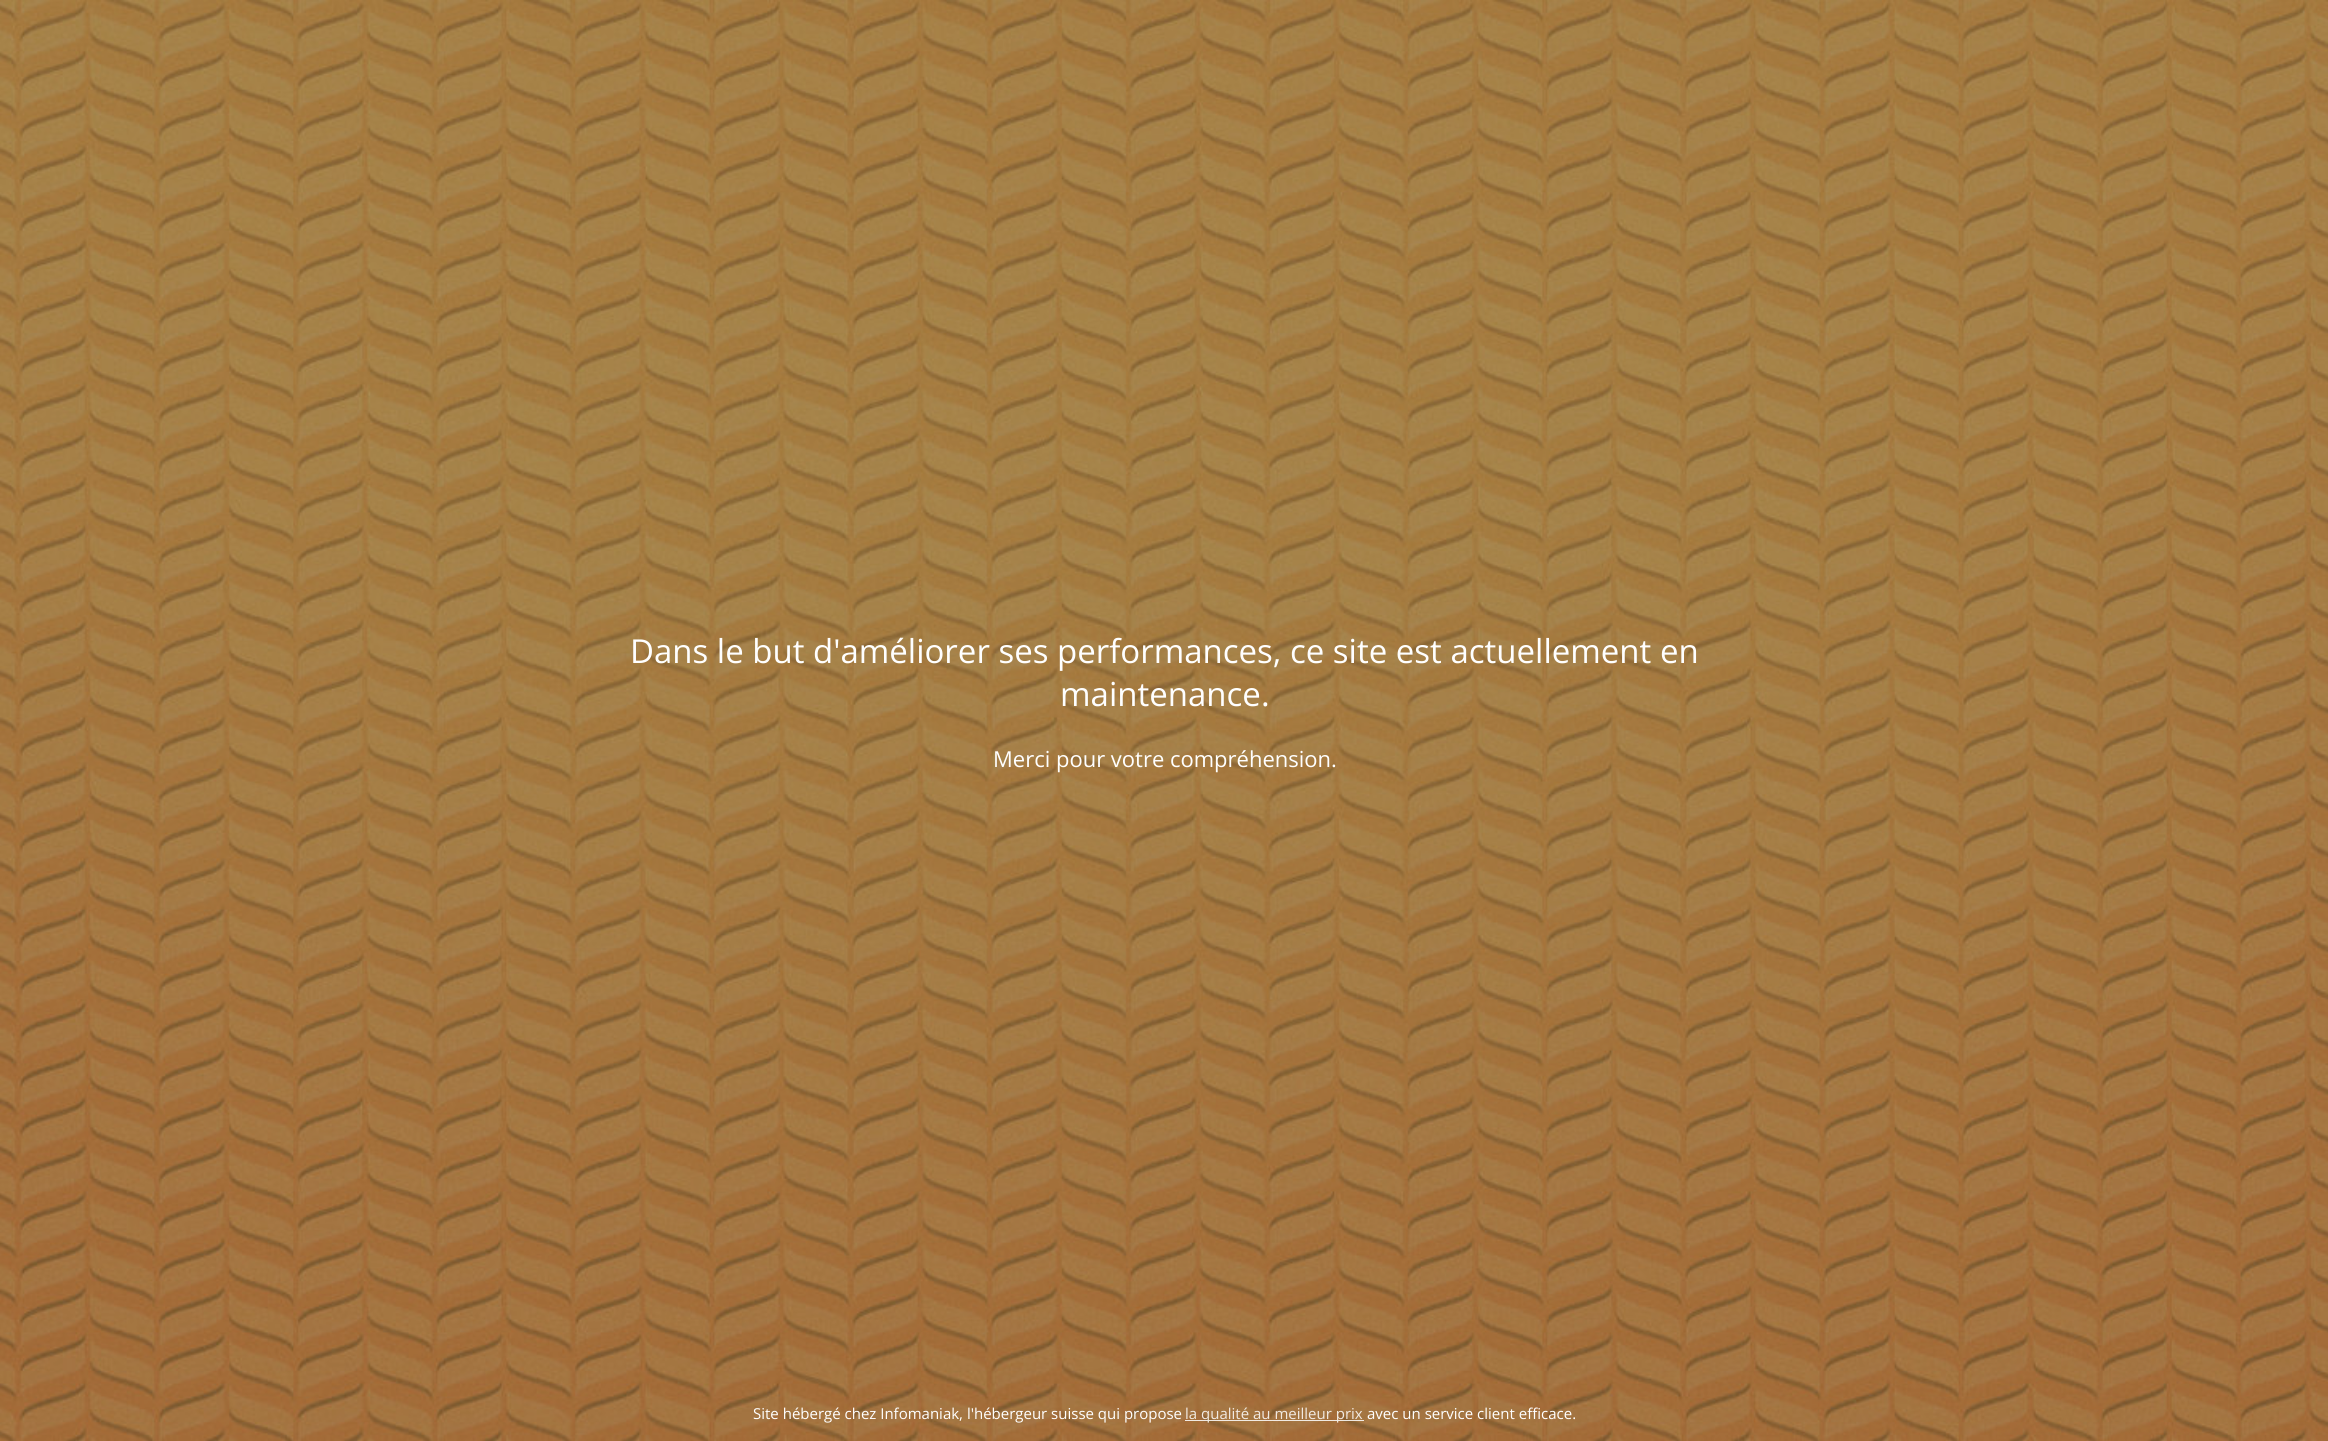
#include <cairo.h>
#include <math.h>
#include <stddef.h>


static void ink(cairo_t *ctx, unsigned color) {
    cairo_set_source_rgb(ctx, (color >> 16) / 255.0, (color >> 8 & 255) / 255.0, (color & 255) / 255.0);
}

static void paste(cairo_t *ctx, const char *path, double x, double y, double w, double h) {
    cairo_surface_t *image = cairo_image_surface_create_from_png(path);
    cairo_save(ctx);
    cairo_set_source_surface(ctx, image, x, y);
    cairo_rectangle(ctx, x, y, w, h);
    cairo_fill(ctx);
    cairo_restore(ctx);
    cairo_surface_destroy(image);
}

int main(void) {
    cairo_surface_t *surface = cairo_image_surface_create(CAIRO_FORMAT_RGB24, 2328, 1441);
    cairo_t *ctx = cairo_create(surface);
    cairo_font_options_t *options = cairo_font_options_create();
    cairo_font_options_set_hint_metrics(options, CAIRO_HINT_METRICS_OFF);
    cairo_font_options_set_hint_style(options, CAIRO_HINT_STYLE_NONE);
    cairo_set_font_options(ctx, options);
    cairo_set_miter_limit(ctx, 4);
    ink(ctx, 0xFFFFFF);
    cairo_paint(ctx);
    paste(ctx, "media/1.png", 0, 0, 2328, 1441);
    cairo_select_font_face(ctx, "Open Sans", CAIRO_FONT_SLANT_NORMAL, CAIRO_FONT_WEIGHT_NORMAL);
    cairo_set_font_size(ctx, 33);
    ink(ctx, 0xFFFFFF);
    cairo_move_to(ctx, 630, 663);
    cairo_show_text(ctx, "Dans le but d'améliorer ses performances, ce site est actuellement en");
    cairo_move_to(ctx, 1060, 706);
    cairo_show_text(ctx, "maintenance.");
    cairo_set_font_size(ctx, 22);
    cairo_move_to(ctx, 993, 767);
    cairo_show_text(ctx, "Merci pour votre compréhension.");
    cairo_set_font_size(ctx, 15);
    cairo_move_to(ctx, 753, 1419);
    cairo_show_text(ctx, "Site hébergé chez Infomaniak, l'hébergeur suisse qui propose");
    cairo_set_source_rgba(ctx, 1, 1, 1, 0.85);
    cairo_rectangle(ctx, 1185, 1420, 179, 1);
    cairo_fill(ctx);
    ink(ctx, 0xF1EAE2);
    cairo_move_to(ctx, 1185, 1419);
    cairo_show_text(ctx, "la qualité au meilleur prix");
    ink(ctx, 0xFFFFFF);
    cairo_move_to(ctx, 1367, 1419);
    cairo_show_text(ctx, "avec un service client efficace.");
    cairo_surface_write_to_png(surface, "image.png");
    cairo_font_options_destroy(options);
    cairo_destroy(ctx);
    cairo_surface_destroy(surface);
    return 0;
}
